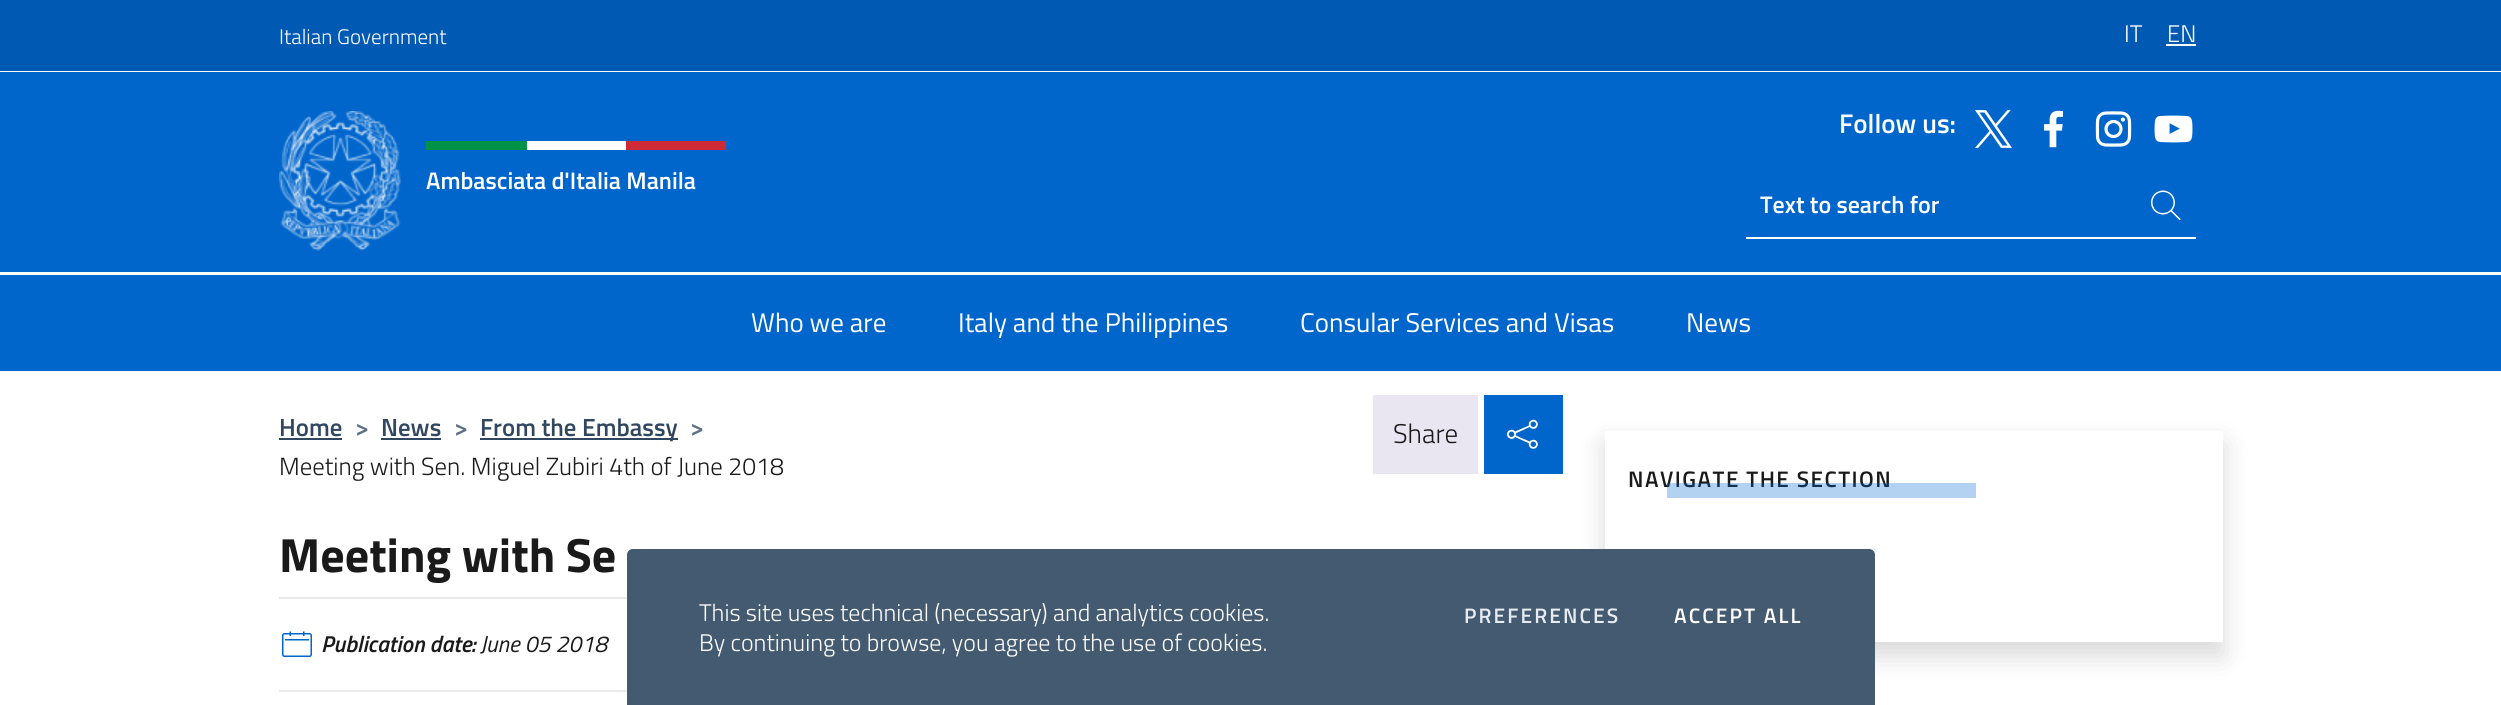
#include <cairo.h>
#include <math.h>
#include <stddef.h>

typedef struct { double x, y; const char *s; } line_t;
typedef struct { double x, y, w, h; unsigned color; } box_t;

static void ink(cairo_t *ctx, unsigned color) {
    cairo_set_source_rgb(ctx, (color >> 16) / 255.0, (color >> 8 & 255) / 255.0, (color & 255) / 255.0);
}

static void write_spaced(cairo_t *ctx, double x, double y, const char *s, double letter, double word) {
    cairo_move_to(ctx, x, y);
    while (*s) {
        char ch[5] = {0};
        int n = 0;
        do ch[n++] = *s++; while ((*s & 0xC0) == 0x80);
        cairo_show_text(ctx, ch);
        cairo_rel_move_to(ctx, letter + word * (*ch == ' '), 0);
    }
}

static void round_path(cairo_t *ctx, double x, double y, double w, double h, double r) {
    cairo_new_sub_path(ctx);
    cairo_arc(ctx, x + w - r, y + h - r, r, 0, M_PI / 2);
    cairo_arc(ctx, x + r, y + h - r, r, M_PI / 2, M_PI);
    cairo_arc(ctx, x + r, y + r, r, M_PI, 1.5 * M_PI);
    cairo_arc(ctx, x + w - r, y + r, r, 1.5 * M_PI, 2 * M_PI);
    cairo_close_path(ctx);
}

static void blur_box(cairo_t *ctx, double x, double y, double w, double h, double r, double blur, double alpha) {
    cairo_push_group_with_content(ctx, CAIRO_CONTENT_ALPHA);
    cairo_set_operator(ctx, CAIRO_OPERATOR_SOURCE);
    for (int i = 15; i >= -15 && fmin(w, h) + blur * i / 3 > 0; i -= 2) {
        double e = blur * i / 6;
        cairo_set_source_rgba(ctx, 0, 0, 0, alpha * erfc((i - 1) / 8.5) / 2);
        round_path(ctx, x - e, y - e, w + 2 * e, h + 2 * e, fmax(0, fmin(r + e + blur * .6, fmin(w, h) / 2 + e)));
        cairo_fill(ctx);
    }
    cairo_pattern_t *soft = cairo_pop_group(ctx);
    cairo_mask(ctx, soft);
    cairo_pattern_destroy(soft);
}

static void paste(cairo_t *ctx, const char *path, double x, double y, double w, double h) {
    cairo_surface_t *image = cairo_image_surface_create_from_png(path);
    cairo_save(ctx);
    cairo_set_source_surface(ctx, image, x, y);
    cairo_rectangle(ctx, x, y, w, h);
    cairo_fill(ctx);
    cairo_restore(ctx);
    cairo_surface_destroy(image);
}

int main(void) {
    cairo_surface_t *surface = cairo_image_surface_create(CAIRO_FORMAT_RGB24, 2501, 705);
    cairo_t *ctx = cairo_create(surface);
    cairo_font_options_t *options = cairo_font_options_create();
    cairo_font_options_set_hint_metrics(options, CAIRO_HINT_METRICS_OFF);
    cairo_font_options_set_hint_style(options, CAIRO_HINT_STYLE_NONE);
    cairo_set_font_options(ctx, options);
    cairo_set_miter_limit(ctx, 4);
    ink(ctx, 0xFFFFFF);
    cairo_paint(ctx);
    ink(ctx, 0x0059B3);
    cairo_rectangle(ctx, 0, 0, 2501, 71);
    cairo_fill(ctx);
    cairo_select_font_face(ctx, "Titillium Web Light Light", CAIRO_FONT_SLANT_NORMAL, CAIRO_FONT_WEIGHT_NORMAL);
    cairo_set_font_size(ctx, 21);
    ink(ctx, 0xFFFFFF);
    cairo_move_to(ctx, 279, 44);
    cairo_show_text(ctx, "Italian Government");
    cairo_set_font_size(ctx, 24);
    cairo_move_to(ctx, 2124, 42);
    cairo_show_text(ctx, "IT");
    cairo_move_to(ctx, 2167, 42);
    cairo_show_text(ctx, "EN");
    cairo_rectangle(ctx, 2166, 44, 30, 2);
    cairo_fill(ctx);
    ink(ctx, 0x0066CC);
    cairo_rectangle(ctx, 0, 72, 2501, 299);
    cairo_fill(ctx);
    paste(ctx, "media/1.png", 279, 111, 122, 140);
    {
        static const box_t items[] = {
            {426, 141, 101, 9, 0x009246},
            {527, 141, 99, 9, 0xFFFFFF},
            {626, 141, 100, 9, 0xCE2B37},
        };
        for (size_t i = 0; i < sizeof items / sizeof *items; i++) {
            ink(ctx, items[i].color);
            cairo_rectangle(ctx, items[i].x, items[i].y, items[i].w, items[i].h);
            cairo_fill(ctx);
        }
    }
    cairo_select_font_face(ctx, "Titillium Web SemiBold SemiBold", CAIRO_FONT_SLANT_NORMAL, CAIRO_FONT_WEIGHT_NORMAL);
    ink(ctx, 0xFFFFFF);
    cairo_move_to(ctx, 426, 189);
    cairo_show_text(ctx, "Ambasciata d'Italia Manila");
    cairo_set_font_size(ctx, 27);
    cairo_move_to(ctx, 1839, 133);
    cairo_show_text(ctx, "Follow us:");
    paste(ctx, "media/2.png", 1975, 110, 37, 38);
    paste(ctx, "media/3.png", 2044, 110, 19, 38);
    paste(ctx, "media/4.png", 2095, 111, 37, 36);
    paste(ctx, "media/5.png", 2154, 115, 39, 28);
    cairo_rectangle(ctx, 1746, 237, 450, 2);
    cairo_fill(ctx);
    cairo_save(ctx);
    cairo_rectangle(ctx, 1760, 186, 400, 36);
    cairo_clip(ctx);
    cairo_set_font_size(ctx, 24);
    cairo_move_to(ctx, 1760, 213);
    cairo_show_text(ctx, "Text to search for");
    cairo_restore(ctx);
    paste(ctx, "media/6.png", 2151, 190, 30, 31);
    cairo_rectangle(ctx, 0, 272, 2501, 3);
    cairo_fill(ctx);
    cairo_select_font_face(ctx, "Titillium Web", CAIRO_FONT_SLANT_NORMAL, CAIRO_FONT_WEIGHT_NORMAL);
    {
        static const line_t items[] = {
            {751, 332, "Who we are"},
            {958, 332, "Italy and the Philippines"},
            {1300, 332, "Consular Services and Visas"},
            {1686, 332, "News"},
        };
        for (size_t i = 0; i < sizeof items / sizeof *items; i++) {
            cairo_move_to(ctx, items[i].x, items[i].y);
            cairo_show_text(ctx, items[i].s);
        }
    }
    cairo_select_font_face(ctx, "Titillium Web SemiBold SemiBold", CAIRO_FONT_SLANT_NORMAL, CAIRO_FONT_WEIGHT_NORMAL);
    cairo_set_font_size(ctx, 24.8);
    ink(ctx, 0x30475F);
    cairo_move_to(ctx, 279, 436);
    cairo_show_text(ctx, "Home");
    cairo_rectangle(ctx, 279, 438, 63, 2);
    cairo_fill(ctx);
    ink(ctx, 0x5D7083);
    cairo_move_to(ctx, 355, 436);
    cairo_show_text(ctx, ">");
    ink(ctx, 0x30475F);
    cairo_move_to(ctx, 381, 436);
    cairo_show_text(ctx, "News");
    cairo_rectangle(ctx, 381, 438, 60, 2);
    cairo_fill(ctx);
    ink(ctx, 0x5D7083);
    cairo_move_to(ctx, 454, 436);
    cairo_show_text(ctx, ">");
    ink(ctx, 0x30475F);
    cairo_rectangle(ctx, 480, 438, 198, 2);
    cairo_fill(ctx);
    cairo_move_to(ctx, 480, 436);
    cairo_show_text(ctx, "From the Embassy");
    ink(ctx, 0x5D7083);
    cairo_move_to(ctx, 690, 436);
    cairo_show_text(ctx, ">");
    cairo_select_font_face(ctx, "Titillium Web Light Light", CAIRO_FONT_SLANT_NORMAL, CAIRO_FONT_WEIGHT_NORMAL);
    ink(ctx, 0x1A1A1A);
    cairo_move_to(ctx, 279, 475);
    cairo_show_text(ctx, "Meeting with Sen. Miguel Zubiri 4th of June 2018");
    ink(ctx, 0x0066CC);
    cairo_rectangle(ctx, 1484, 395, 79, 79);
    cairo_fill(ctx);
    ink(ctx, 0xE9E6F2);
    cairo_rectangle(ctx, 1373, 395, 105, 79);
    cairo_fill(ctx);
    cairo_set_font_size(ctx, 27);
    ink(ctx, 0x1A1A1A);
    cairo_move_to(ctx, 1393, 443);
    cairo_show_text(ctx, "Share");
    paste(ctx, "media/7.png", 1507, 419, 31, 30);
    cairo_select_font_face(ctx, "Titillium Web", CAIRO_FONT_SLANT_NORMAL, CAIRO_FONT_WEIGHT_BOLD);
    cairo_set_font_size(ctx, 48);
    cairo_move_to(ctx, 279, 572);
    cairo_show_text(ctx, "Meeting with Se");
    ink(ctx, 0xEAEAEA);
    cairo_rectangle(ctx, 279, 597, 348, 2);
    cairo_fill(ctx);
    cairo_rectangle(ctx, 279, 690, 348, 2);
    cairo_fill(ctx);
    paste(ctx, "media/8.png", 282, 631, 30, 26);
    cairo_select_font_face(ctx, "Titillium Web SemiBold SemiBold", CAIRO_FONT_SLANT_ITALIC, CAIRO_FONT_WEIGHT_NORMAL);
    cairo_set_font_size(ctx, 23);
    ink(ctx, 0x1A1A1A);
    cairo_move_to(ctx, 321, 652);
    cairo_show_text(ctx, "Publication date:");
    cairo_select_font_face(ctx, "Titillium Web", CAIRO_FONT_SLANT_ITALIC, CAIRO_FONT_WEIGHT_NORMAL);
    cairo_move_to(ctx, 480, 652);
    cairo_show_text(ctx, "June 05 2018");
    cairo_save(ctx);
    cairo_set_fill_rule(ctx, CAIRO_FILL_RULE_EVEN_ODD);
    cairo_new_path(ctx);
    cairo_move_to(ctx, 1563, 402);
    cairo_line_to(ctx, 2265, 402);
    cairo_line_to(ctx, 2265, 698);
    cairo_line_to(ctx, 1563, 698);
    cairo_close_path(ctx);
    cairo_move_to(ctx, 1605, 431);
    cairo_line_to(ctx, 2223, 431);
    cairo_line_to(ctx, 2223, 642);
    cairo_line_to(ctx, 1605, 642);
    cairo_close_path(ctx);
    cairo_clip(ctx);
    ink(ctx, 0x000000);
    blur_box(ctx, 1605, 444, 618, 212, 0, 13.5, 0.15);
    cairo_restore(ctx);
    cairo_select_font_face(ctx, "Titillium Web SemiBold SemiBold", CAIRO_FONT_SLANT_NORMAL, CAIRO_FONT_WEIGHT_NORMAL);
    cairo_set_font_size(ctx, 22.5);
    write_spaced(ctx, 1628, 487, "NAVIGATE THE SECTION", 1.5, 0);
    cairo_set_source_rgba(ctx, 0, 0.4, 0.8, 0.3);
    cairo_rectangle(ctx, 1667, 483, 309, 15);
    cairo_fill(ctx);
    ink(ctx, 0x435A70);
    cairo_new_path(ctx);
    cairo_move_to(ctx, 633, 549);
    cairo_line_to(ctx, 1869, 549);
    cairo_curve_to(ctx, 1872.5, 549, 1875, 551.5, 1875, 555);
    cairo_line_to(ctx, 1875, 705);
    cairo_line_to(ctx, 627, 705);
    cairo_line_to(ctx, 627, 555);
    cairo_curve_to(ctx, 627, 551.5, 629.5, 549, 633, 549);
    cairo_close_path(ctx);
    cairo_fill(ctx);
    cairo_select_font_face(ctx, "Titillium Web Light Light", CAIRO_FONT_SLANT_NORMAL, CAIRO_FONT_WEIGHT_NORMAL);
    cairo_set_font_size(ctx, 24);
    ink(ctx, 0xFFFFFF);
    cairo_move_to(ctx, 699, 621);
    cairo_show_text(ctx, "This site uses technical (necessary) and analytics cookies.");
    cairo_move_to(ctx, 699, 651);
    cairo_show_text(ctx, "By continuing to browse, you agree to the use of cookies.");
    cairo_select_font_face(ctx, "Titillium Web SemiBold SemiBold", CAIRO_FONT_SLANT_NORMAL, CAIRO_FONT_WEIGHT_NORMAL);
    cairo_set_font_size(ctx, 21);
    ink(ctx, 0xE6ECF2);
    write_spaced(ctx, 1464, 623, "PREFERENCES", 2.1, 0);
    ink(ctx, 0xFFFFFF);
    write_spaced(ctx, 1674, 623, "ACCEPT ALL", 2.1, 0);
    cairo_surface_write_to_png(surface, "image.png");
    cairo_font_options_destroy(options);
    cairo_destroy(ctx);
    cairo_surface_destroy(surface);
    return 0;
}
